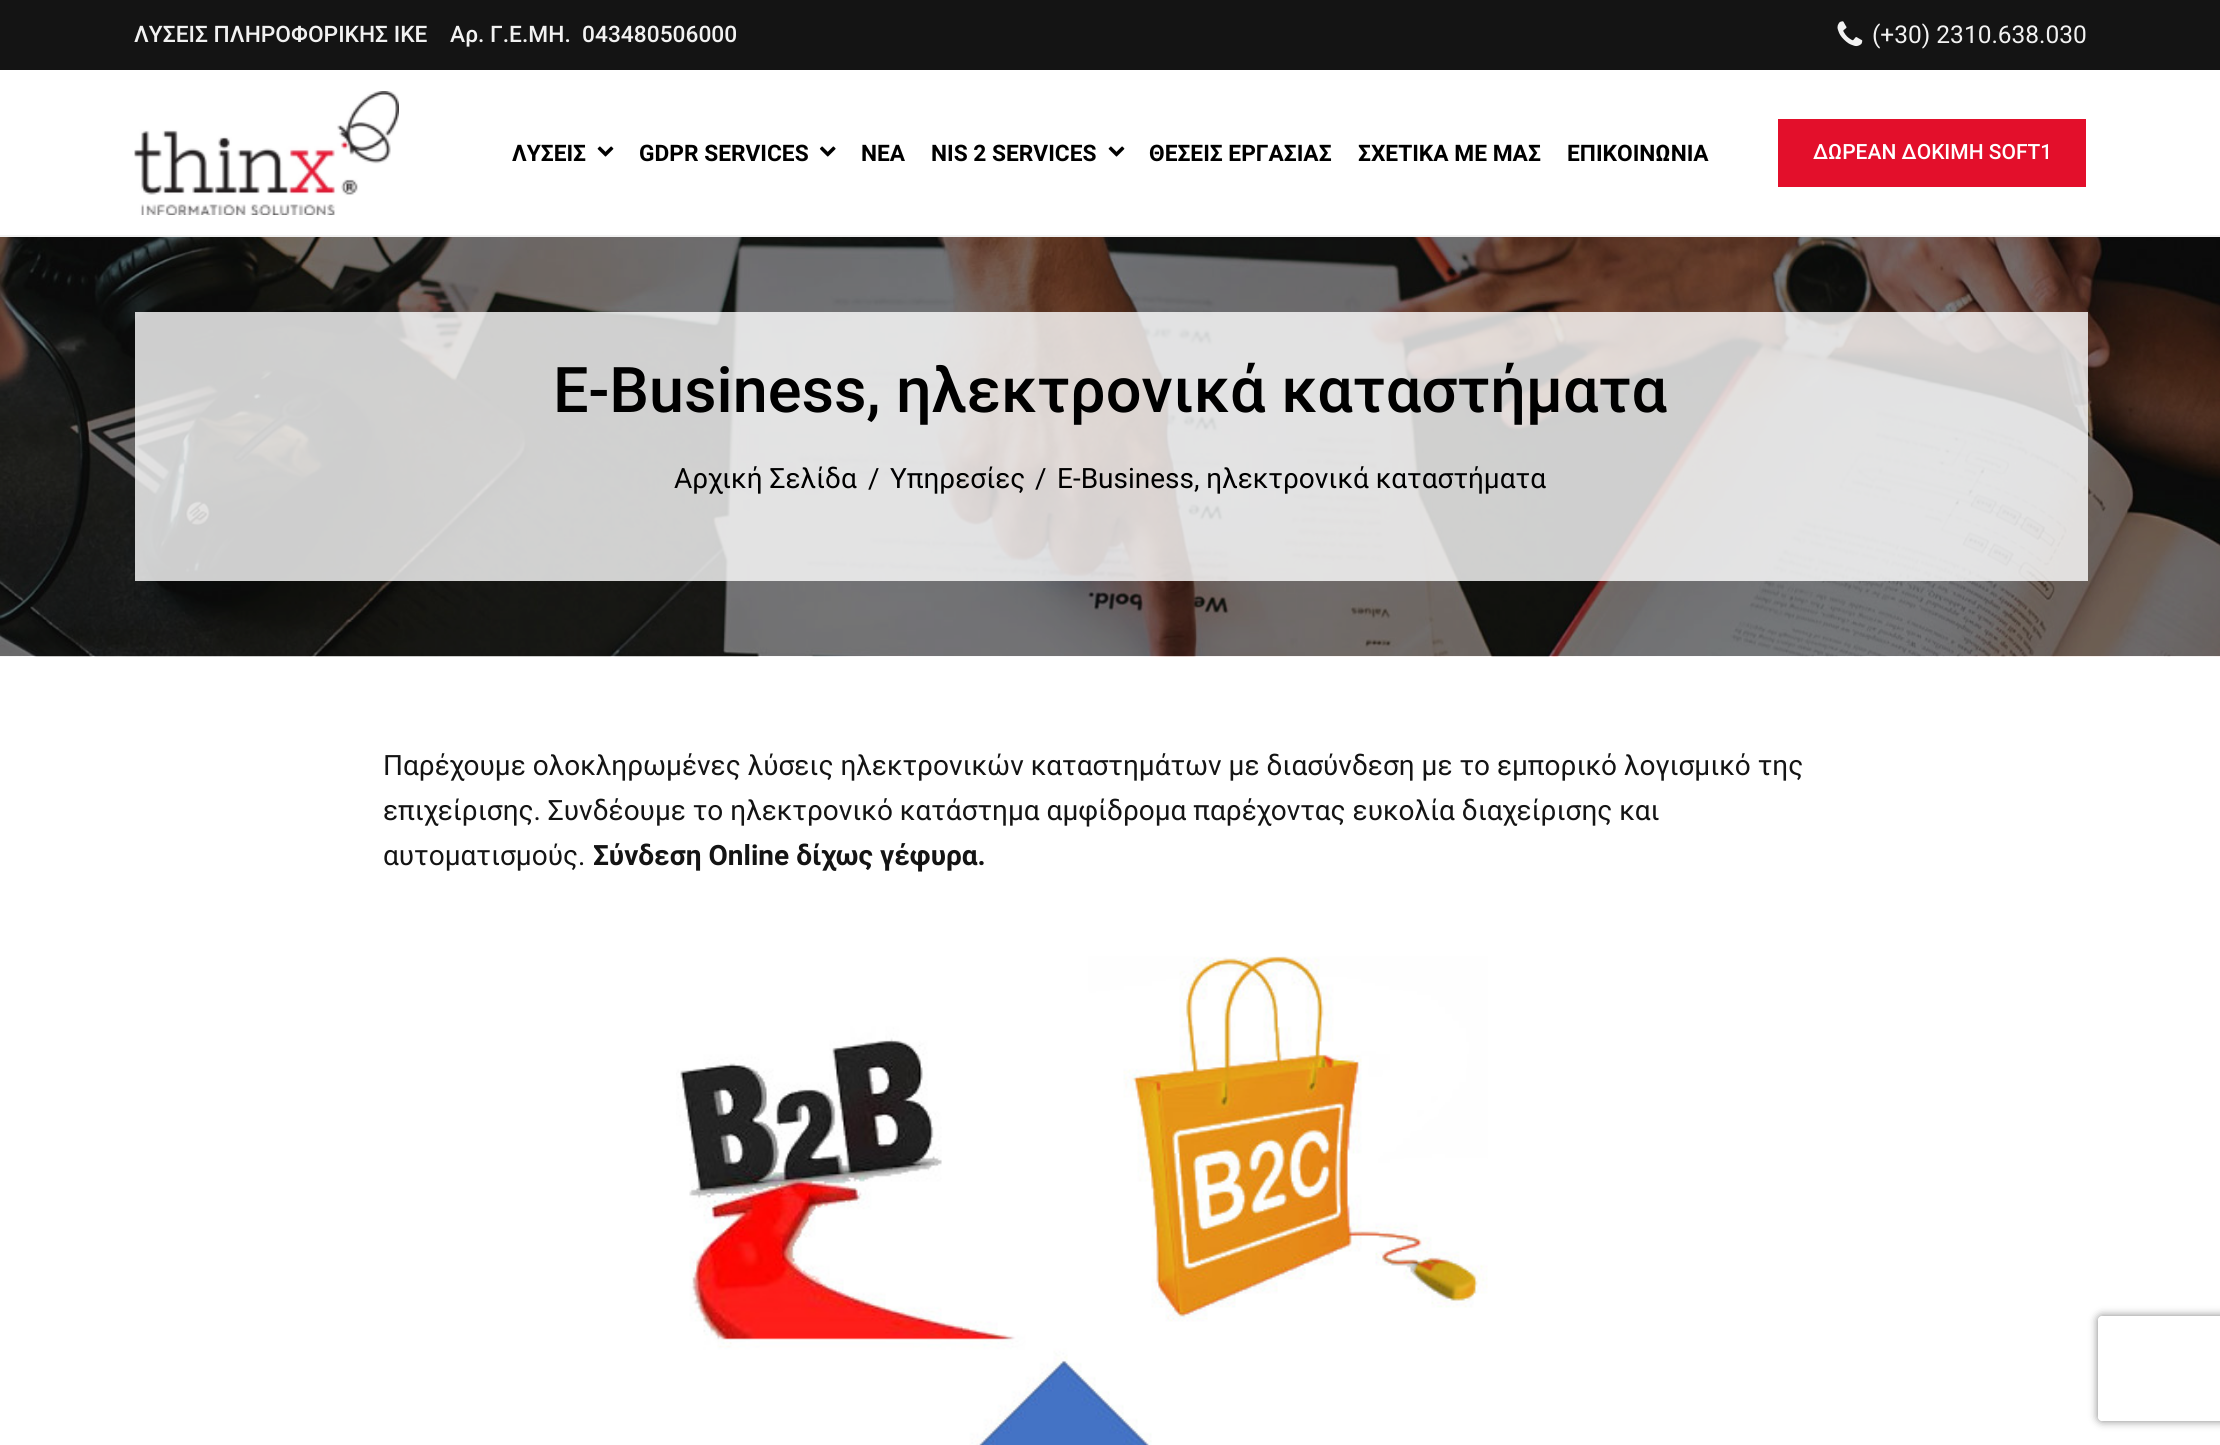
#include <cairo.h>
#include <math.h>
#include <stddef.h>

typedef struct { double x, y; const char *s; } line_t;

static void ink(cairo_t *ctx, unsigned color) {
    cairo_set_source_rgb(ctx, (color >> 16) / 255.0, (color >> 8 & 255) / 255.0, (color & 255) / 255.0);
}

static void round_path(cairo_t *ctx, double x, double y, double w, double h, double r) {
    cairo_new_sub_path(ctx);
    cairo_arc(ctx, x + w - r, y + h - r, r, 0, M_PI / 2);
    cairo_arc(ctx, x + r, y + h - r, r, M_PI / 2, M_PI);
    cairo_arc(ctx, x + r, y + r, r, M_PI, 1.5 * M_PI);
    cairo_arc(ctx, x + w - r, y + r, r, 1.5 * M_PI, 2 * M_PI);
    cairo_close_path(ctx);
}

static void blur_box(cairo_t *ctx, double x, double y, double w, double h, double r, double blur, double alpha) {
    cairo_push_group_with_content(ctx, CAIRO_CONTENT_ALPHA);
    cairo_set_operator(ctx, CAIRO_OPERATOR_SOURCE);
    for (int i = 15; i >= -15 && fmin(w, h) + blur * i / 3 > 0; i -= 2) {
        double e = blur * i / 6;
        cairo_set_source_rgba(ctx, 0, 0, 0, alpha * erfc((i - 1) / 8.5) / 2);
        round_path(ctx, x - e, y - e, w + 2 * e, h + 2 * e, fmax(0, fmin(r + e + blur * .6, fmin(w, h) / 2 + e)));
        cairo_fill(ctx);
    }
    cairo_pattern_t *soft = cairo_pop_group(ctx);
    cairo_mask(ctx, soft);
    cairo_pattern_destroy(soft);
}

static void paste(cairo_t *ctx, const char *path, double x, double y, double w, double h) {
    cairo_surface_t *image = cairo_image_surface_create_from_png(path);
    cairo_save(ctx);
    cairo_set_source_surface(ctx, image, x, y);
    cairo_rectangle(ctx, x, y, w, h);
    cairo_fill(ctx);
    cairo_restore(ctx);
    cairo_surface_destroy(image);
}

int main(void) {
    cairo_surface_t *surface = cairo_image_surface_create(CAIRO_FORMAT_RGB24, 2220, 1445);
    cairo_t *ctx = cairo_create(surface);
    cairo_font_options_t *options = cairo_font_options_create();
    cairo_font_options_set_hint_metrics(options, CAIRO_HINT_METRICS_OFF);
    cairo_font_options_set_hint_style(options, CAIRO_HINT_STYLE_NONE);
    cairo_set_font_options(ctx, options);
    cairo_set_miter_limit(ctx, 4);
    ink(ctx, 0xFFFFFF);
    cairo_paint(ctx);
    ink(ctx, 0xF2F2F2);
    cairo_rectangle(ctx, 0, 235, 2220, 2);
    cairo_fill(ctx);
    ink(ctx, 0x141414);
    cairo_rectangle(ctx, 0, 0, 2220, 70);
    cairo_fill(ctx);
    cairo_select_font_face(ctx, "Roboto Medium", CAIRO_FONT_SLANT_NORMAL, CAIRO_FONT_WEIGHT_NORMAL);
    cairo_set_font_size(ctx, 22.75);
    ink(ctx, 0xF2F2F2);
    cairo_move_to(ctx, 134, 42);
    cairo_show_text(ctx, "ΛΥΣΕΙΣ ΠΛΗΡΟΦΟΡΙΚΗΣ ΙΚΕ    Αρ. Γ.Ε.ΜΗ.  043480506000");
    paste(ctx, "media/1.png", 1837, 21, 26, 26);
    cairo_select_font_face(ctx, "Roboto", CAIRO_FONT_SLANT_NORMAL, CAIRO_FONT_WEIGHT_NORMAL);
    cairo_set_font_size(ctx, 24.5);
    cairo_move_to(ctx, 1872, 43);
    cairo_show_text(ctx, "(+30) 2310.638.030");
    paste(ctx, "media/2.png", 134, 91, 265, 124);
    cairo_select_font_face(ctx, "Roboto", CAIRO_FONT_SLANT_NORMAL, CAIRO_FONT_WEIGHT_BOLD);
    cairo_set_font_size(ctx, 22.75);
    ink(ctx, 0x000000);
    cairo_move_to(ctx, 512, 161);
    cairo_show_text(ctx, "ΛΥΣΕΙΣ");
    paste(ctx, "media/3.png", 597, 146, 17, 11);
    cairo_move_to(ctx, 639, 161);
    cairo_show_text(ctx, "GDPR SERVICES");
    paste(ctx, "media/4.png", 819, 146, 17, 11);
    cairo_move_to(ctx, 861, 161);
    cairo_show_text(ctx, "ΝΕΑ");
    cairo_move_to(ctx, 931, 161);
    cairo_show_text(ctx, "NIS 2 SERVICES");
    paste(ctx, "media/3.png", 1108, 146, 17, 11);
    {
        static const line_t items[] = {
            {1149, 161, "ΘΕΣΕΙΣ ΕΡΓΑΣΙΑΣ"},
            {1358, 161, "ΣΧΕΤΙΚΑ ΜΕ ΜΑΣ"},
            {1567, 161, "ΕΠΙΚΟΙΝΩΝΙΑ"},
        };
        for (size_t i = 0; i < sizeof items / sizeof *items; i++) {
            cairo_move_to(ctx, items[i].x, items[i].y);
            cairo_show_text(ctx, items[i].s);
        }
    }
    ink(ctx, 0xE30F2B);
    cairo_rectangle(ctx, 1778, 119, 308, 68);
    cairo_fill(ctx);
    cairo_select_font_face(ctx, "Roboto Medium", CAIRO_FONT_SLANT_NORMAL, CAIRO_FONT_WEIGHT_NORMAL);
    cairo_set_font_size(ctx, 21);
    ink(ctx, 0xFFFFFF);
    cairo_move_to(ctx, 1813, 159);
    cairo_show_text(ctx, "ΔΩΡΕΑΝ ΔΟΚΙΜΗ SOFT1");
    paste(ctx, "media/5.png", 0, 237, 2220, 420);
    cairo_set_source_rgba(ctx, 1, 1, 1, 0.8);
    cairo_rectangle(ctx, 135, 312, 1953, 269);
    cairo_fill(ctx);
    cairo_set_font_size(ctx, 63);
    ink(ctx, 0x000000);
    cairo_move_to(ctx, 553, 412);
    cairo_show_text(ctx, "E-Business, ηλεκτρονικά καταστήματα");
    cairo_select_font_face(ctx, "Roboto", CAIRO_FONT_SLANT_NORMAL, CAIRO_FONT_WEIGHT_NORMAL);
    cairo_set_font_size(ctx, 28);
    {
        static const line_t items[] = {
            {674, 488, "Αρχική Σελίδα"},
            {868, 488, "/"},
            {890, 488, "Υπηρεσίες"},
            {1035, 488, "/"},
            {1057, 488, "E-Business, ηλεκτρονικά καταστήματα"},
        };
        for (size_t i = 0; i < sizeof items / sizeof *items; i++) {
            cairo_move_to(ctx, items[i].x, items[i].y);
            cairo_show_text(ctx, items[i].s);
        }
    }
    ink(ctx, 0x141414);
    {
        static const line_t items[] = {
            {383, 775, "Παρέχουμε ολοκληρωμένες λύσεις ηλεκτρονικών καταστημάτων με διασύνδεση με το εμπορικό λογισμικό της"},
            {383, 820, "επιχείρισης. Συνδέουμε το ηλεκτρονικό κατάστημα αμφίδρομα παρέχοντας ευκολία διαχείρισης και"},
            {383, 865, "αυτοματισμούς."},
        };
        for (size_t i = 0; i < sizeof items / sizeof *items; i++) {
            cairo_move_to(ctx, items[i].x, items[i].y);
            cairo_show_text(ctx, items[i].s);
        }
    }
    cairo_select_font_face(ctx, "Roboto", CAIRO_FONT_SLANT_NORMAL, CAIRO_FONT_WEIGHT_BOLD);
    cairo_move_to(ctx, 593, 865);
    cairo_show_text(ctx, "Σύνδεση Online δίχως γέφυρα.");
    paste(ctx, "media/6.png", 676, 956, 812, 489);
    cairo_save(ctx);
    cairo_set_fill_rule(ctx, CAIRO_FILL_RULE_EVEN_ODD);
    cairo_new_path(ctx);
    cairo_move_to(ctx, 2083, 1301);
    cairo_line_to(ctx, 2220, 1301);
    cairo_line_to(ctx, 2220, 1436);
    cairo_line_to(ctx, 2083, 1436);
    cairo_close_path(ctx);
    cairo_move_to(ctx, 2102, 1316);
    cairo_line_to(ctx, 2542, 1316);
    cairo_curve_to(ctx, 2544, 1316, 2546, 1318, 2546, 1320);
    cairo_line_to(ctx, 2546, 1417);
    cairo_curve_to(ctx, 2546, 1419, 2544, 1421, 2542, 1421);
    cairo_line_to(ctx, 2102, 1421);
    cairo_curve_to(ctx, 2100, 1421, 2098, 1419, 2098, 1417);
    cairo_line_to(ctx, 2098, 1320);
    cairo_curve_to(ctx, 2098, 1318, 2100, 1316, 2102, 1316);
    cairo_close_path(ctx);
    cairo_clip(ctx);
    ink(ctx, 0x808080);
    blur_box(ctx, 2098, 1316, 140, 105, 4, 4.5, 1);
    cairo_restore(ctx);
    cairo_surface_write_to_png(surface, "image.png");
    cairo_font_options_destroy(options);
    cairo_destroy(ctx);
    cairo_surface_destroy(surface);
    return 0;
}
